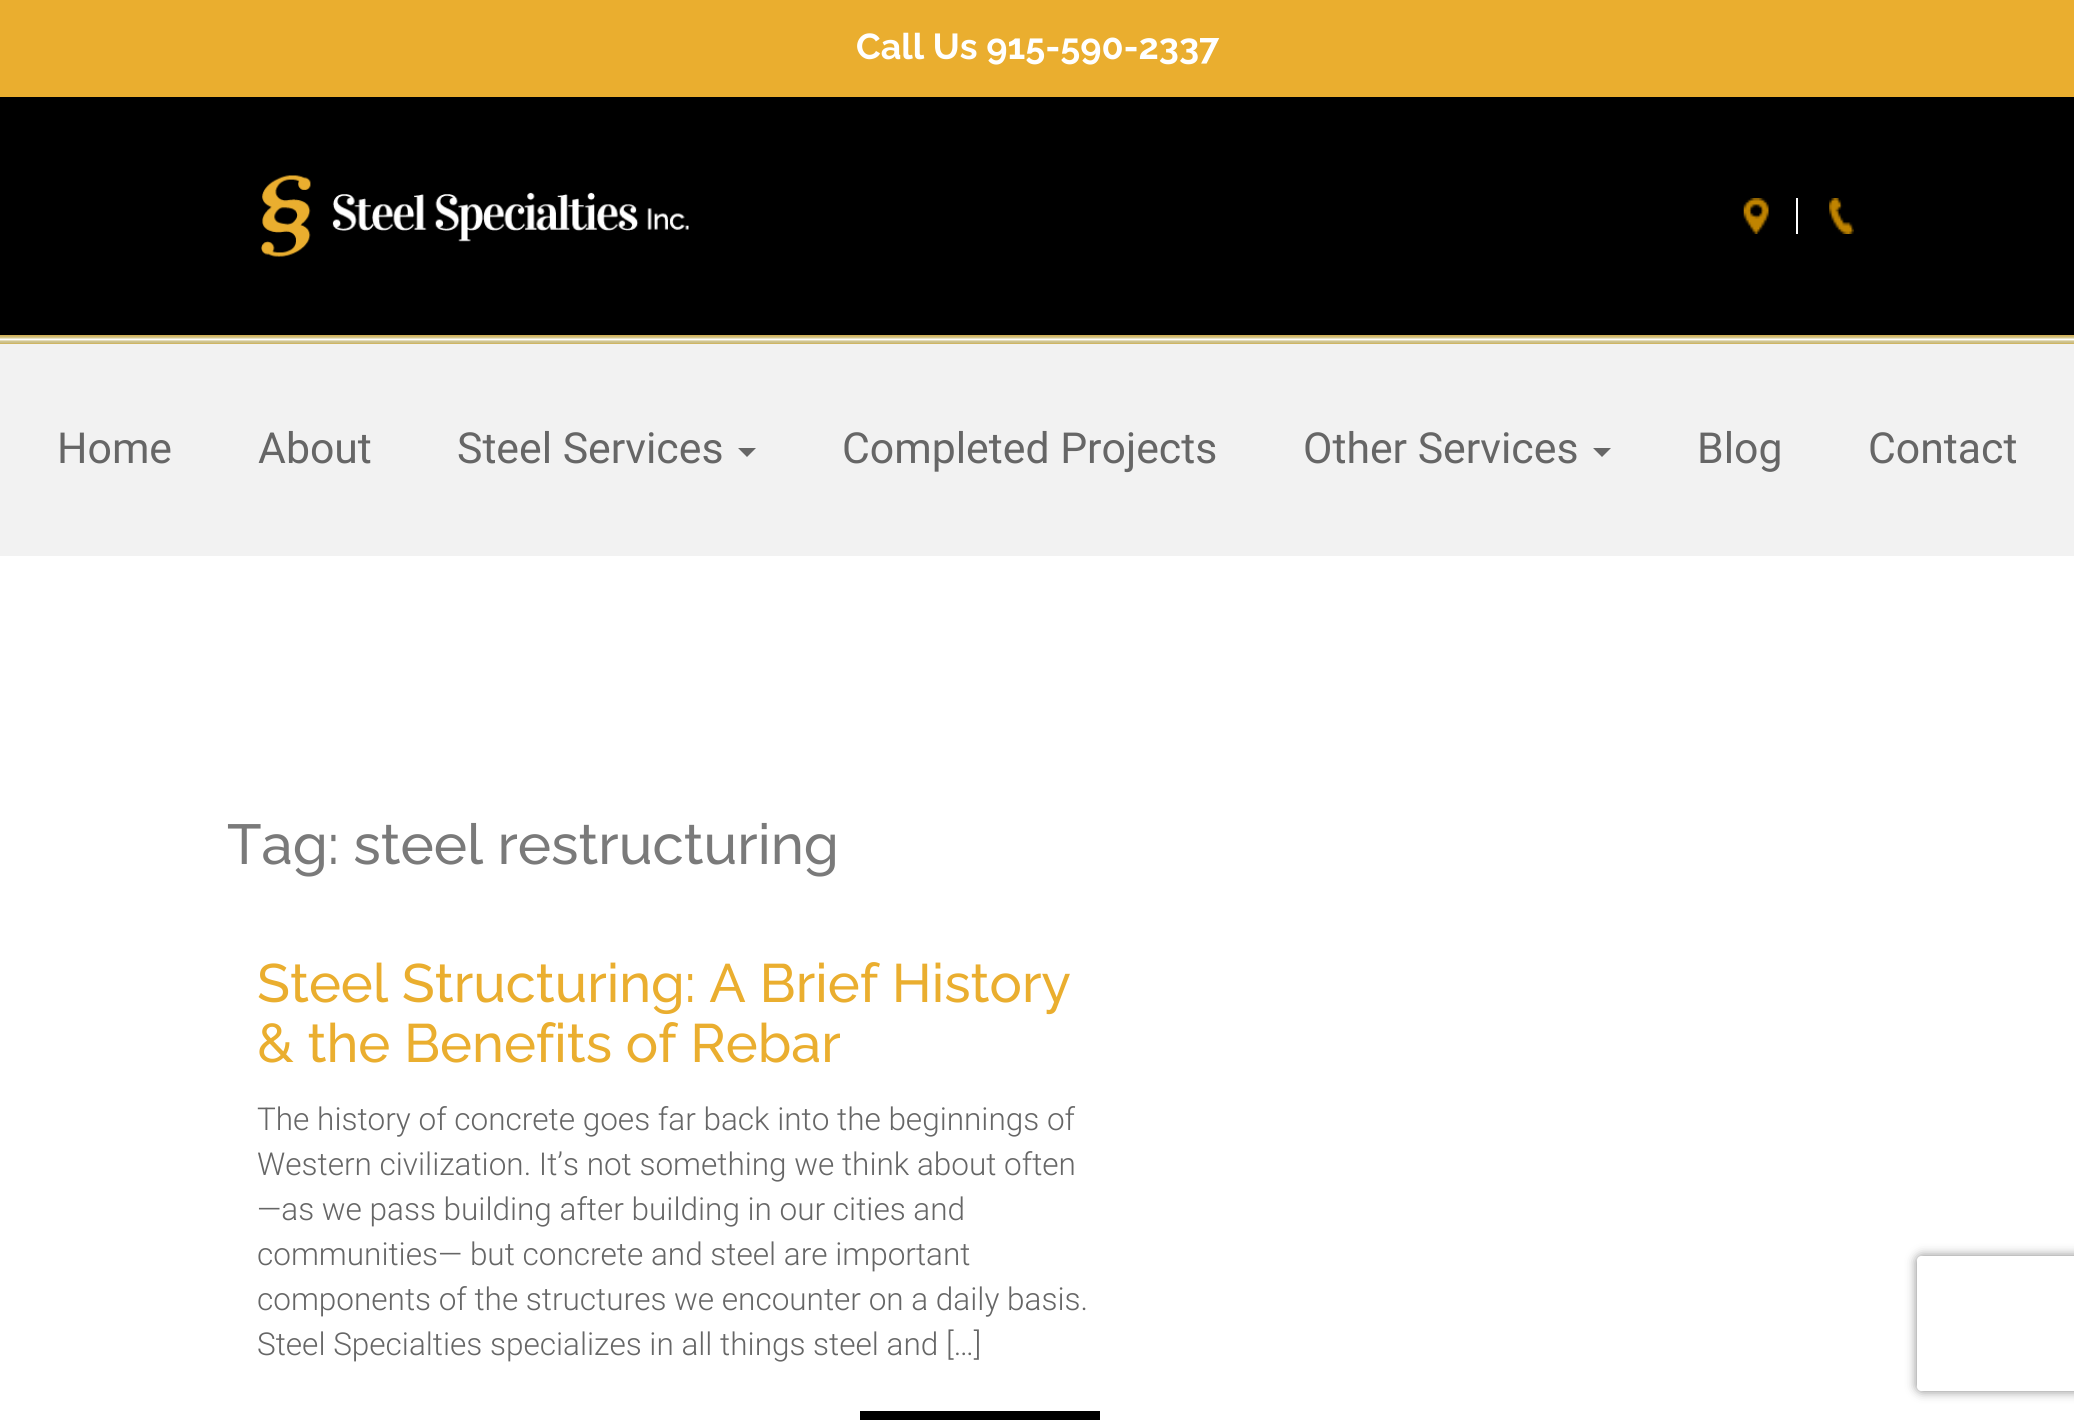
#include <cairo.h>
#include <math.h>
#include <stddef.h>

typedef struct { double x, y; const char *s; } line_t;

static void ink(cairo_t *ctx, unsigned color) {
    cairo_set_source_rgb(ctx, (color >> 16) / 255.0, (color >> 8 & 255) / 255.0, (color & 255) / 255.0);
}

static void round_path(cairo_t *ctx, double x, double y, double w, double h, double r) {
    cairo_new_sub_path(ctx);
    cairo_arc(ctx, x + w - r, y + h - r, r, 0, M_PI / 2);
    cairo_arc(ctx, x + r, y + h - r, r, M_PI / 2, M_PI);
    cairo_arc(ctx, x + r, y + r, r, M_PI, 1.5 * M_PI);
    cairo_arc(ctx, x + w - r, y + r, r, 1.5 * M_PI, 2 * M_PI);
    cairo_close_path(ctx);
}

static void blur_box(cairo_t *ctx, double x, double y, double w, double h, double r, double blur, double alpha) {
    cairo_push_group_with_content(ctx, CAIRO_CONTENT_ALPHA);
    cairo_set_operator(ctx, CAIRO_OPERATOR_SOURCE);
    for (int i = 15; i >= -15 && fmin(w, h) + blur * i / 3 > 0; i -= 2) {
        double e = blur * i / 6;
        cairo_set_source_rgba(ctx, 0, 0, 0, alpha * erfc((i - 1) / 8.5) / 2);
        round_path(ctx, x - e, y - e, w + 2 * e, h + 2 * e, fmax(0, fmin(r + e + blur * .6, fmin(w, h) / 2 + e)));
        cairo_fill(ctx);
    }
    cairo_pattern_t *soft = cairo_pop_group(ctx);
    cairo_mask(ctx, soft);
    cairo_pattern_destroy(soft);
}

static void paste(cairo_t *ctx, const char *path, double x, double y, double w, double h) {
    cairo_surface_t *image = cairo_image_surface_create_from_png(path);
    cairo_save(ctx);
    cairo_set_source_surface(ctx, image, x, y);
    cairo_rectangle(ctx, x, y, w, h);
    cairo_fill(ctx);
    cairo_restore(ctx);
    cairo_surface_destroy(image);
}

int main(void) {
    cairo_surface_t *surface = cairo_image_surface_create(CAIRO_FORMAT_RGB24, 2074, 1420);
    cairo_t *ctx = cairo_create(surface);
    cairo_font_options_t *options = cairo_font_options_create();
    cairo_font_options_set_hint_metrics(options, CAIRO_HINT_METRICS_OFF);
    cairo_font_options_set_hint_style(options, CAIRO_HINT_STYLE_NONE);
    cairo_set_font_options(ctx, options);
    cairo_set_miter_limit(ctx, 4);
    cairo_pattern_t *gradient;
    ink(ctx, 0xFFFFFF);
    cairo_paint(ctx);
    ink(ctx, 0xEAAE2F);
    cairo_rectangle(ctx, 0, 0, 2074, 97);
    cairo_fill(ctx);
    cairo_select_font_face(ctx, "Raleway", CAIRO_FONT_SLANT_NORMAL, CAIRO_FONT_WEIGHT_BOLD);
    cairo_set_font_size(ctx, 36);
    ink(ctx, 0xFFFFFF);
    cairo_move_to(ctx, 856, 59);
    cairo_show_text(ctx, "Call Us 915-590-2337");
    ink(ctx, 0x000000);
    cairo_rectangle(ctx, 0, 97, 2074, 238);
    cairo_fill(ctx);
    paste(ctx, "media/1.png", 261, 175, 428, 82);
    ink(ctx, 0xFFFFFF);
    cairo_rectangle(ctx, 1796, 198, 2, 36);
    cairo_fill(ctx);
    paste(ctx, "media/2.png", 1743, 198, 26, 36);
    paste(ctx, "media/3.png", 1829, 198, 25, 36);
    gradient = cairo_pattern_create_linear(1037, 335, 1037, 344);
    cairo_pattern_add_color_stop_rgba(gradient, 0, 0.824, 0.675, 0.306, 1);
    cairo_pattern_add_color_stop_rgba(gradient, 0.26, 0.824, 0.761, 0.522, 1);
    cairo_pattern_add_color_stop_rgba(gradient, 0.5, 1, 1, 1, 1);
    cairo_pattern_add_color_stop_rgba(gradient, 0.68, 0.827, 0.784, 0.576, 1);
    cairo_pattern_add_color_stop_rgba(gradient, 0.85, 0.792, 0.745, 0.533, 1);
    cairo_pattern_add_color_stop_rgba(gradient, 1, 0.824, 0.698, 0.306, 1);
    cairo_set_source(ctx, gradient);
    cairo_pattern_destroy(gradient);
    cairo_rectangle(ctx, 0, 335, 2074, 9);
    cairo_fill(ctx);
    ink(ctx, 0xF2F2F2);
    cairo_rectangle(ctx, 0, 344, 2074, 212);
    cairo_fill(ctx);
    cairo_select_font_face(ctx, "Roboto", CAIRO_FONT_SLANT_NORMAL, CAIRO_FONT_WEIGHT_NORMAL);
    cairo_set_font_size(ctx, 42.75);
    ink(ctx, 0x666666);
    {
        static const line_t items[] = {
            {57, 463, "Home"},
            {258, 463, "About"},
            {457, 463, "Steel Services"},
        };
        for (size_t i = 0; i < sizeof items / sizeof *items; i++) {
            cairo_move_to(ctx, items[i].x, items[i].y);
            cairo_show_text(ctx, items[i].s);
        }
    }
    cairo_new_path(ctx);
    cairo_move_to(ctx, 738, 448);
    cairo_line_to(ctx, 756, 448);
    cairo_line_to(ctx, 747, 457);
    cairo_close_path(ctx);
    cairo_fill(ctx);
    cairo_move_to(ctx, 842, 463);
    cairo_show_text(ctx, "Completed Projects");
    cairo_move_to(ctx, 1303, 463);
    cairo_show_text(ctx, "Other Services");
    cairo_new_path(ctx);
    cairo_move_to(ctx, 1593, 448);
    cairo_line_to(ctx, 1611, 448);
    cairo_line_to(ctx, 1602, 457);
    cairo_close_path(ctx);
    cairo_fill(ctx);
    cairo_move_to(ctx, 1697, 463);
    cairo_show_text(ctx, "Blog");
    cairo_move_to(ctx, 1868, 463);
    cairo_show_text(ctx, "Contact");
    cairo_select_font_face(ctx, "Raleway Medium", CAIRO_FONT_SLANT_NORMAL, CAIRO_FONT_WEIGHT_NORMAL);
    cairo_set_font_size(ctx, 56.25);
    ink(ctx, 0x7A7A7A);
    cairo_move_to(ctx, 227, 864);
    cairo_show_text(ctx, "Tag: steel restructuring");
    cairo_set_font_size(ctx, 54);
    ink(ctx, 0xEAAE2F);
    cairo_move_to(ctx, 257, 1002);
    cairo_show_text(ctx, "Steel Structuring: A Brief History");
    cairo_move_to(ctx, 257, 1062);
    cairo_show_text(ctx, "& the Benefits of Rebar");
    cairo_select_font_face(ctx, "Roboto Light", CAIRO_FONT_SLANT_NORMAL, CAIRO_FONT_WEIGHT_NORMAL);
    cairo_set_font_size(ctx, 31.5);
    ink(ctx, 0x666666);
    {
        static const line_t items[] = {
            {257, 1130, "The history of concrete goes far back into the beginnings of"},
            {257, 1175, "Western civilization. It’s not something we think about often"},
            {257, 1220, "—as we pass building after building in our cities and"},
            {257, 1265, "communities— but concrete and steel are important"},
            {257, 1310, "components of the structures we encounter on a daily basis."},
            {257, 1355, "Steel Specialties specializes in all things steel and […]"},
        };
        for (size_t i = 0; i < sizeof items / sizeof *items; i++) {
            cairo_move_to(ctx, items[i].x, items[i].y);
            cairo_show_text(ctx, items[i].s);
        }
    }
    ink(ctx, 0x000000);
    cairo_rectangle(ctx, 860, 1411, 240, 9);
    cairo_fill(ctx);
    cairo_save(ctx);
    cairo_set_fill_rule(ctx, CAIRO_FILL_RULE_EVEN_ODD);
    cairo_new_path(ctx);
    cairo_move_to(ctx, 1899, 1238);
    cairo_line_to(ctx, 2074, 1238);
    cairo_line_to(ctx, 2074, 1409);
    cairo_line_to(ctx, 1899, 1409);
    cairo_close_path(ctx);
    cairo_move_to(ctx, 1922, 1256);
    cairo_line_to(ctx, 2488, 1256);
    cairo_curve_to(ctx, 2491, 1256, 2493, 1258, 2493, 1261);
    cairo_line_to(ctx, 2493, 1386);
    cairo_curve_to(ctx, 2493, 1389, 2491, 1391, 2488, 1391);
    cairo_line_to(ctx, 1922, 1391);
    cairo_curve_to(ctx, 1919, 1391, 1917, 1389, 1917, 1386);
    cairo_line_to(ctx, 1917, 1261);
    cairo_curve_to(ctx, 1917, 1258, 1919, 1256, 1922, 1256);
    cairo_close_path(ctx);
    cairo_clip(ctx);
    ink(ctx, 0x808080);
    blur_box(ctx, 1917, 1256, 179, 135, 5, 5.5, 1);
    cairo_restore(ctx);
    cairo_surface_write_to_png(surface, "image.png");
    cairo_font_options_destroy(options);
    cairo_destroy(ctx);
    cairo_surface_destroy(surface);
    return 0;
}
